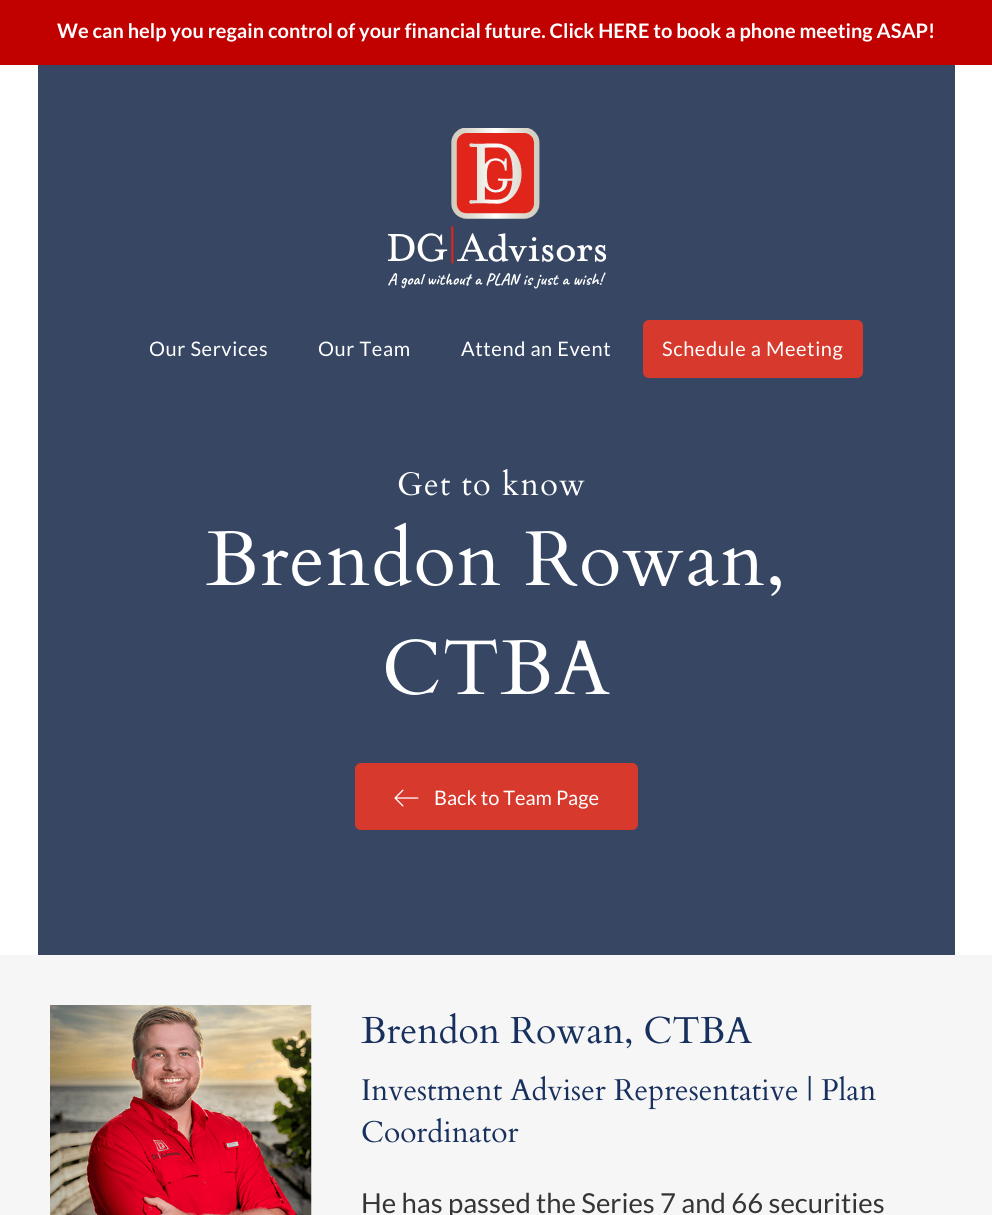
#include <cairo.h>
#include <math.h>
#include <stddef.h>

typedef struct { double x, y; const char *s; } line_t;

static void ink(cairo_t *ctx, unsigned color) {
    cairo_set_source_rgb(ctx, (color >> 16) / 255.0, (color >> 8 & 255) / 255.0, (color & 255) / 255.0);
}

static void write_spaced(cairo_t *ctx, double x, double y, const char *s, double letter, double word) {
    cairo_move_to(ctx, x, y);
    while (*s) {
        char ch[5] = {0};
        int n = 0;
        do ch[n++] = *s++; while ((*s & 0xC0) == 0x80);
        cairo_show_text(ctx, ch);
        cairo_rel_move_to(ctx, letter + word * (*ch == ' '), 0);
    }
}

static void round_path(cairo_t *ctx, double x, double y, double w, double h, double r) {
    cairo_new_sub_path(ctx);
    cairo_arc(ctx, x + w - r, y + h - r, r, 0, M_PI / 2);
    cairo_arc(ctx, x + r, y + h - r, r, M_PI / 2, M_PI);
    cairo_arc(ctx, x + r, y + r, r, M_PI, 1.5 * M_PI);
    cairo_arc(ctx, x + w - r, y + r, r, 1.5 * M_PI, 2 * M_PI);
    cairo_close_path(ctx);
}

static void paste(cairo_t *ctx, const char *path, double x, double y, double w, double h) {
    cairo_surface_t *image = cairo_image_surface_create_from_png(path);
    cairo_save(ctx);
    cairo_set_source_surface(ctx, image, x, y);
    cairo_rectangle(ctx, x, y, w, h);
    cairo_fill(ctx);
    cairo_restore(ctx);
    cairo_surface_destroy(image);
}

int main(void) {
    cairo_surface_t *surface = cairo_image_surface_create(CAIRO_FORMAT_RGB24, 992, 1215);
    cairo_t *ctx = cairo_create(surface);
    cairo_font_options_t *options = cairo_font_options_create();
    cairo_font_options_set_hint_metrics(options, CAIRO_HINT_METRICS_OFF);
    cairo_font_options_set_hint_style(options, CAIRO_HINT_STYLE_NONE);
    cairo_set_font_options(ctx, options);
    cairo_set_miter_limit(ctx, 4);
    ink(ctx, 0xFFFFFF);
    cairo_paint(ctx);
    ink(ctx, 0xC10000);
    cairo_rectangle(ctx, 0, 0, 992, 65);
    cairo_fill(ctx);
    cairo_select_font_face(ctx, "Lato", CAIRO_FONT_SLANT_NORMAL, CAIRO_FONT_WEIGHT_BOLD);
    cairo_set_font_size(ctx, 20);
    ink(ctx, 0xFFFFFF);
    cairo_move_to(ctx, 57, 38);
    cairo_show_text(ctx, "We can help you regain control of your financial future. Click HERE to book a phone meeting ASAP!");
    ink(ctx, 0x364663);
    cairo_rectangle(ctx, 38, 65, 917, 890);
    cairo_fill(ctx);
    paste(ctx, "media/1.png", 388, 128, 218, 161);
    cairo_select_font_face(ctx, "Lato", CAIRO_FONT_SLANT_NORMAL, CAIRO_FONT_WEIGHT_NORMAL);
    ink(ctx, 0xFFFFFF);
    {
        static const line_t items[] = {
            {149, 356, "Our Services"},
            {318, 356, "Our Team"},
            {461, 356, "Attend an Event"},
        };
        for (size_t i = 0; i < sizeof items / sizeof *items; i++) {
            write_spaced(ctx, items[i].x, items[i].y, items[i].s, 0.6, 0);
        }
    }
    ink(ctx, 0xD73A2D);
    round_path(ctx, 643, 320, 220, 58, 6);
    cairo_fill(ctx);
    ink(ctx, 0xFFFFFF);
    write_spaced(ctx, 662, 356, "Schedule a Meeting", 0.6, 0);
    cairo_select_font_face(ctx, "Cardo", CAIRO_FONT_SLANT_NORMAL, CAIRO_FONT_WEIGHT_NORMAL);
    cairo_set_font_size(ctx, 32.5);
    write_spaced(ctx, 397, 495, "Get to know", 1.25, 0);
    cairo_set_font_size(ctx, 77.5);
    write_spaced(ctx, 206, 585, "Brendon Rowan,", 1.25, 0);
    write_spaced(ctx, 382, 694, "CTBA", 1.25, 0);
    ink(ctx, 0xD73A2D);
    round_path(ctx, 355.5, 763.5, 282, 66, 5.5);
    cairo_fill_preserve(ctx);
    cairo_set_line_width(ctx, 1);
    cairo_stroke(ctx);
    paste(ctx, "media/2.png", 394, 789, 25, 18);
    cairo_select_font_face(ctx, "Lato", CAIRO_FONT_SLANT_NORMAL, CAIRO_FONT_WEIGHT_NORMAL);
    cairo_set_font_size(ctx, 20);
    ink(ctx, 0xFFFFFF);
    cairo_move_to(ctx, 434, 805);
    cairo_show_text(ctx, "Back to Team Page");
    ink(ctx, 0xF6F6F6);
    cairo_rectangle(ctx, 0, 955, 992, 260);
    cairo_fill(ctx);
    paste(ctx, "media/3.png", 50, 1005, 262, 210);
    cairo_select_font_face(ctx, "Cardo", CAIRO_FONT_SLANT_NORMAL, CAIRO_FONT_WEIGHT_NORMAL);
    cairo_set_font_size(ctx, 37.5);
    ink(ctx, 0x17305E);
    cairo_move_to(ctx, 361, 1043);
    cairo_show_text(ctx, "Brendon Rowan, CTBA");
    cairo_set_font_size(ctx, 30);
    cairo_move_to(ctx, 361, 1100);
    cairo_show_text(ctx, "Investment Adviser Representative | Plan");
    cairo_move_to(ctx, 361, 1142);
    cairo_show_text(ctx, "Coordinator");
    cairo_select_font_face(ctx, "Lato", CAIRO_FONT_SLANT_NORMAL, CAIRO_FONT_WEIGHT_NORMAL);
    cairo_set_font_size(ctx, 27.5);
    ink(ctx, 0x353535);
    cairo_move_to(ctx, 361, 1213);
    cairo_show_text(ctx, "He has passed the Series 7 and 66 securities");
    cairo_surface_write_to_png(surface, "image.png");
    cairo_font_options_destroy(options);
    cairo_destroy(ctx);
    cairo_surface_destroy(surface);
    return 0;
}
